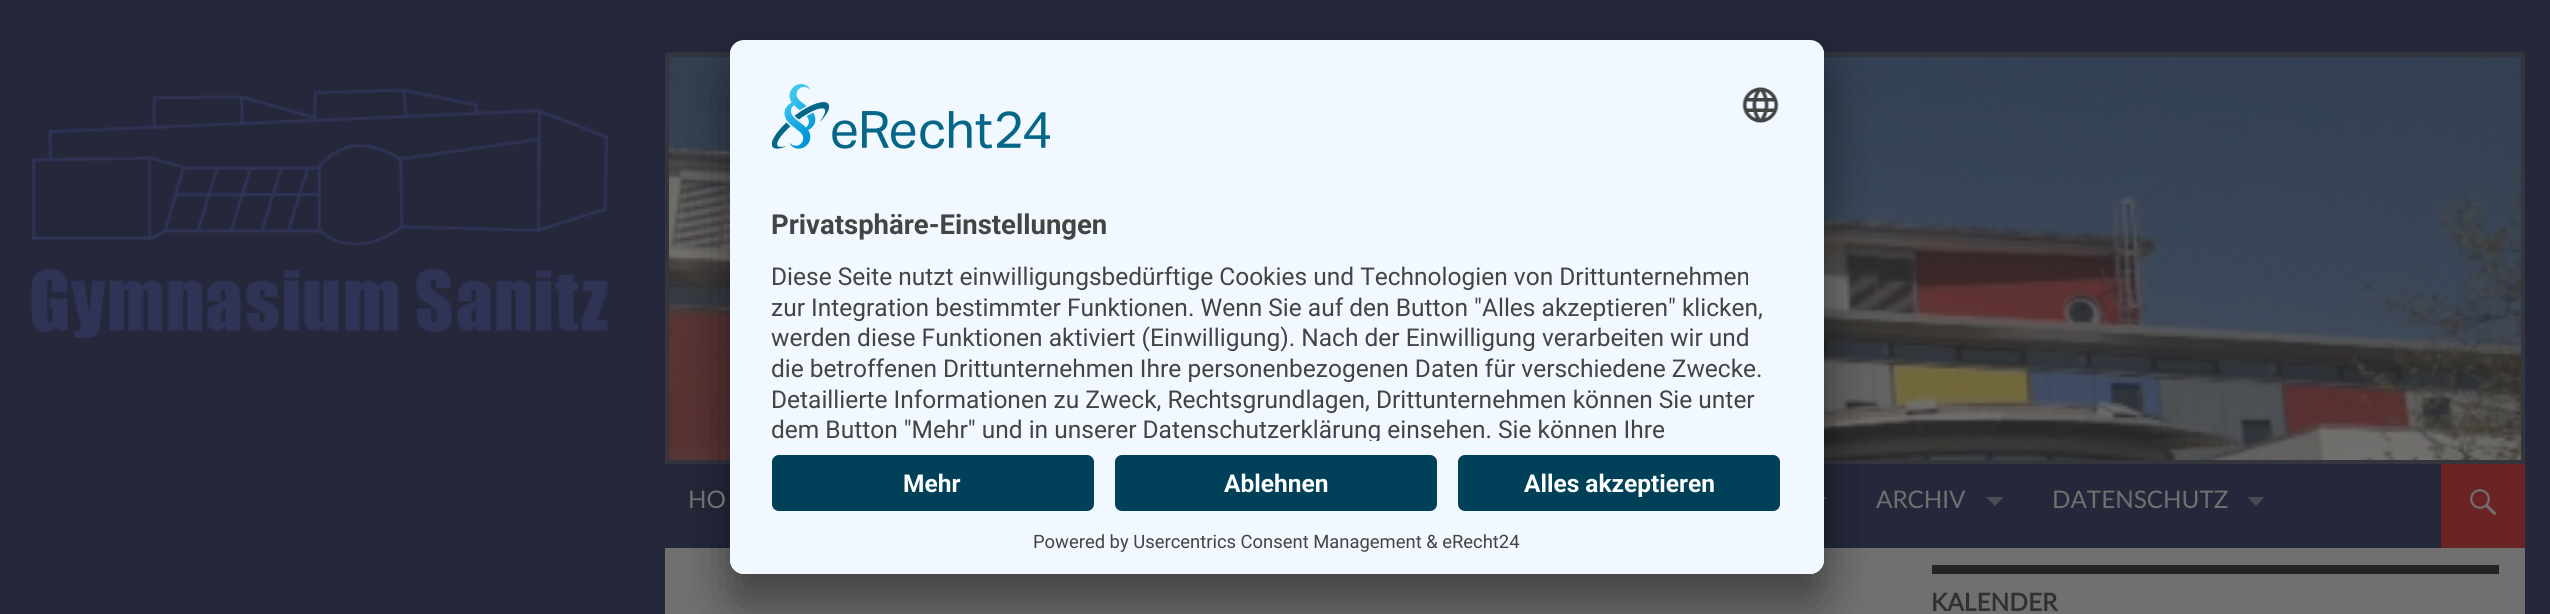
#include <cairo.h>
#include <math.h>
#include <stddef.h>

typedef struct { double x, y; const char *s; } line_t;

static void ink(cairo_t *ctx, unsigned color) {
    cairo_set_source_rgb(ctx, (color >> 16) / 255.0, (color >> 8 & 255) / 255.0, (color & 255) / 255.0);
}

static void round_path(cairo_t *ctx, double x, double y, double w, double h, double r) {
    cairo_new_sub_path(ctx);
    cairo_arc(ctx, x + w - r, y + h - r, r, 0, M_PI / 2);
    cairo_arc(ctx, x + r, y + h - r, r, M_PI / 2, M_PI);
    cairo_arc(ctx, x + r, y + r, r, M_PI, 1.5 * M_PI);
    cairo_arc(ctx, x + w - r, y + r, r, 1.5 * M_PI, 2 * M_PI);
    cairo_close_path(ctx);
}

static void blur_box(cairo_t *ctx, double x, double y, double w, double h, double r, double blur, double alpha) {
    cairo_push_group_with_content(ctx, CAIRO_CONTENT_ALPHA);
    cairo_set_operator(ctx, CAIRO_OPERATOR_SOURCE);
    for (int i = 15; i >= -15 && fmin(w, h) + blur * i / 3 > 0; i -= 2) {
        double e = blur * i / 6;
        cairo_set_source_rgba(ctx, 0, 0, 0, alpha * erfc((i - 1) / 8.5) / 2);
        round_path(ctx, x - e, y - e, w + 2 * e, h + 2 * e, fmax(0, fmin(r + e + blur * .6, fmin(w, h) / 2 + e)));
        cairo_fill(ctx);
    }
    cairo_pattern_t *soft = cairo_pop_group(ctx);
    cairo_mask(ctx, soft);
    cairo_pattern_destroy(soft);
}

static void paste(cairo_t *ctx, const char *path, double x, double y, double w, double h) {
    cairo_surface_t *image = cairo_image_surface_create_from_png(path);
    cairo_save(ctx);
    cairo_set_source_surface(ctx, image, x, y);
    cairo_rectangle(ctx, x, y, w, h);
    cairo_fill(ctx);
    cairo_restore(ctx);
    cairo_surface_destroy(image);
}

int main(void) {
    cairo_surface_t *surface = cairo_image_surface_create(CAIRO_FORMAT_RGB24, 2550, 614);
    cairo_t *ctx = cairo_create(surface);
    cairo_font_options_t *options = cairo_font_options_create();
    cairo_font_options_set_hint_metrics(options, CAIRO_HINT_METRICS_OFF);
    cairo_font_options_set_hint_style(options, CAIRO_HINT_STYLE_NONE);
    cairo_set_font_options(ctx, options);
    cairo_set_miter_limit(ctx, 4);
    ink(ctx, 0x24283A);
    cairo_paint(ctx);
    paste(ctx, "media/1.png", 30, 87, 579, 252);
    paste(ctx, "media/2.png", 668, 52, 1854, 408);
    cairo_rectangle(ctx, 667, 55, 1856, 407);
    ink(ctx, 0x34353D);
    cairo_set_line_width(ctx, 4);
    cairo_stroke(ctx);
    ink(ctx, 0x4A4C55);
    cairo_new_path(ctx);
    cairo_move_to(ctx, 1809.5, 497);
    cairo_line_to(ctx, 1827, 497);
    cairo_line_to(ctx, 1818, 506);
    cairo_close_path(ctx);
    cairo_fill(ctx);
    ink(ctx, 0x707070);
    cairo_rectangle(ctx, 665, 548, 1860, 66);
    cairo_fill(ctx);
    ink(ctx, 0x000000);
    blur_box(ctx, 730, 75, 1094, 534, 14, 24.5, 0.3);
    blur_box(ctx, 730, 49, 1094, 534, 14, 23, 0.22);
    ink(ctx, 0xF1F8FF);
    round_path(ctx, 730, 40, 1094, 534, 14);
    cairo_fill(ctx);
    cairo_save(ctx);
    round_path(ctx, 730, 40, 1094, 534, 14);
    cairo_clip(ctx);
    cairo_new_path(ctx);
    cairo_move_to(ctx, 744, 40);
    cairo_line_to(ctx, 1810, 40);
    cairo_curve_to(ctx, 1817.5, 40, 1824, 46.5, 1824, 54);
    cairo_line_to(ctx, 1824, 441);
    cairo_line_to(ctx, 730, 441);
    cairo_line_to(ctx, 730, 54);
    cairo_curve_to(ctx, 730, 46.5, 736.5, 40, 744, 40);
    cairo_close_path(ctx);
    cairo_clip(ctx);
    cairo_rectangle(ctx, 730, 42, 1094, 399);
    cairo_fill(ctx);
    cairo_restore(ctx);
    paste(ctx, "media/3.png", 772, 84, 278, 65);
    paste(ctx, "media/4.png", 1742, 87, 37, 36);
    cairo_select_font_face(ctx, "Roboto", CAIRO_FONT_SLANT_NORMAL, CAIRO_FONT_WEIGHT_BOLD);
    cairo_set_font_size(ctx, 27.5);
    ink(ctx, 0x444444);
    cairo_move_to(ctx, 771, 234);
    cairo_show_text(ctx, "Privatsphäre-Einstellungen");
    cairo_select_font_face(ctx, "Roboto", CAIRO_FONT_SLANT_NORMAL, CAIRO_FONT_WEIGHT_NORMAL);
    cairo_set_font_size(ctx, 24.5);
    {
        static const line_t items[] = {
            {771, 285, "Diese Seite nutzt einwilligungsbedürftige Cookies und Technologien von Drittunternehmen"},
            {771, 316, "zur Integration bestimmter Funktionen. Wenn Sie auf den Button \"Alles akzeptieren\" klicken,"},
            {771, 346, "werden diese Funktionen aktiviert (Einwilligung). Nach der Einwilligung verarbeiten wir und"},
            {771, 377, "die betroffenen Drittunternehmen Ihre personenbezogenen Daten für verschiedene Zwecke."},
            {771, 408, "Detaillierte Informationen zu Zweck, Rechtsgrundlagen, Drittunternehmen können Sie unter"},
        };
        for (size_t i = 0; i < sizeof items / sizeof *items; i++) {
            cairo_move_to(ctx, items[i].x, items[i].y);
            cairo_show_text(ctx, items[i].s);
        }
    }
    cairo_save(ctx);
    cairo_new_path(ctx);
    cairo_move_to(ctx, 744, 40);
    cairo_line_to(ctx, 1810, 40);
    cairo_curve_to(ctx, 1817.5, 40, 1824, 46.5, 1824, 54);
    cairo_line_to(ctx, 1824, 441);
    cairo_line_to(ctx, 730, 441);
    cairo_line_to(ctx, 730, 54);
    cairo_curve_to(ctx, 730, 46.5, 736.5, 40, 744, 40);
    cairo_close_path(ctx);
    cairo_clip(ctx);
    cairo_move_to(ctx, 771, 438);
    cairo_show_text(ctx, "dem Button \"Mehr\" und in unserer Datenschutzerklärung einsehen. Sie können Ihre");
    cairo_restore(ctx);
    ink(ctx, 0xF1F8FF);
    cairo_new_path(ctx);
    cairo_move_to(ctx, 730, 441);
    cairo_line_to(ctx, 1824, 441);
    cairo_line_to(ctx, 1824, 560);
    cairo_curve_to(ctx, 1824, 567.5, 1817.5, 574, 1810, 574);
    cairo_line_to(ctx, 744, 574);
    cairo_curve_to(ctx, 736.5, 574, 730, 567.5, 730, 560);
    cairo_close_path(ctx);
    cairo_fill(ctx);
    ink(ctx, 0x004059);
    round_path(ctx, 772, 455, 322, 56, 7);
    cairo_fill(ctx);
    cairo_select_font_face(ctx, "Roboto", CAIRO_FONT_SLANT_NORMAL, CAIRO_FONT_WEIGHT_BOLD);
    ink(ctx, 0xFFFFFF);
    cairo_move_to(ctx, 903, 492);
    cairo_show_text(ctx, "Mehr");
    ink(ctx, 0x004059);
    round_path(ctx, 1115, 455, 322, 56, 7);
    cairo_fill(ctx);
    ink(ctx, 0xFFFFFF);
    cairo_move_to(ctx, 1224, 492);
    cairo_show_text(ctx, "Ablehnen");
    ink(ctx, 0x004059);
    round_path(ctx, 1458, 455, 322, 56, 7);
    cairo_fill(ctx);
    ink(ctx, 0xFFFFFF);
    cairo_move_to(ctx, 1524, 492);
    cairo_show_text(ctx, "Alles akzeptieren");
    cairo_select_font_face(ctx, "Roboto", CAIRO_FONT_SLANT_NORMAL, CAIRO_FONT_WEIGHT_NORMAL);
    cairo_set_font_size(ctx, 18.4);
    ink(ctx, 0x444444);
    cairo_move_to(ctx, 1033, 548);
    cairo_show_text(ctx, "Powered by Usercentrics Consent Management & eRecht24");
    cairo_select_font_face(ctx, "Lato", CAIRO_FONT_SLANT_NORMAL, CAIRO_FONT_WEIGHT_NORMAL);
    cairo_set_font_size(ctx, 24.25);
    ink(ctx, 0x707070);
    cairo_move_to(ctx, 688, 508);
    cairo_show_text(ctx, "HO");
    cairo_move_to(ctx, 1876, 508);
    cairo_show_text(ctx, "ARCHIV");
    ink(ctx, 0x4A4C55);
    cairo_new_path(ctx);
    cairo_move_to(ctx, 1986, 497);
    cairo_line_to(ctx, 2004, 497);
    cairo_line_to(ctx, 1995, 506);
    cairo_close_path(ctx);
    cairo_fill(ctx);
    ink(ctx, 0x707070);
    cairo_move_to(ctx, 2052, 508);
    cairo_show_text(ctx, "DATENSCHUTZ");
    ink(ctx, 0x4A4C55);
    cairo_new_path(ctx);
    cairo_move_to(ctx, 2247, 497);
    cairo_line_to(ctx, 2264.5, 497);
    cairo_line_to(ctx, 2256, 506);
    cairo_close_path(ctx);
    cairo_fill(ctx);
    ink(ctx, 0x6B2424);
    cairo_rectangle(ctx, 2441, 464, 84, 84);
    cairo_fill(ctx);
    paste(ctx, "media/5.png", 2470, 489, 27, 27);
    ink(ctx, 0x242424);
    cairo_rectangle(ctx, 1932, 565, 567, 9);
    cairo_fill(ctx);
    cairo_select_font_face(ctx, "Lato", CAIRO_FONT_SLANT_NORMAL, CAIRO_FONT_WEIGHT_BOLD);
    cairo_set_font_size(ctx, 24.5);
    ink(ctx, 0x313131);
    cairo_move_to(ctx, 1931, 611);
    cairo_show_text(ctx, "KALENDER");
    cairo_surface_write_to_png(surface, "image.png");
    cairo_font_options_destroy(options);
    cairo_destroy(ctx);
    cairo_surface_destroy(surface);
    return 0;
}
